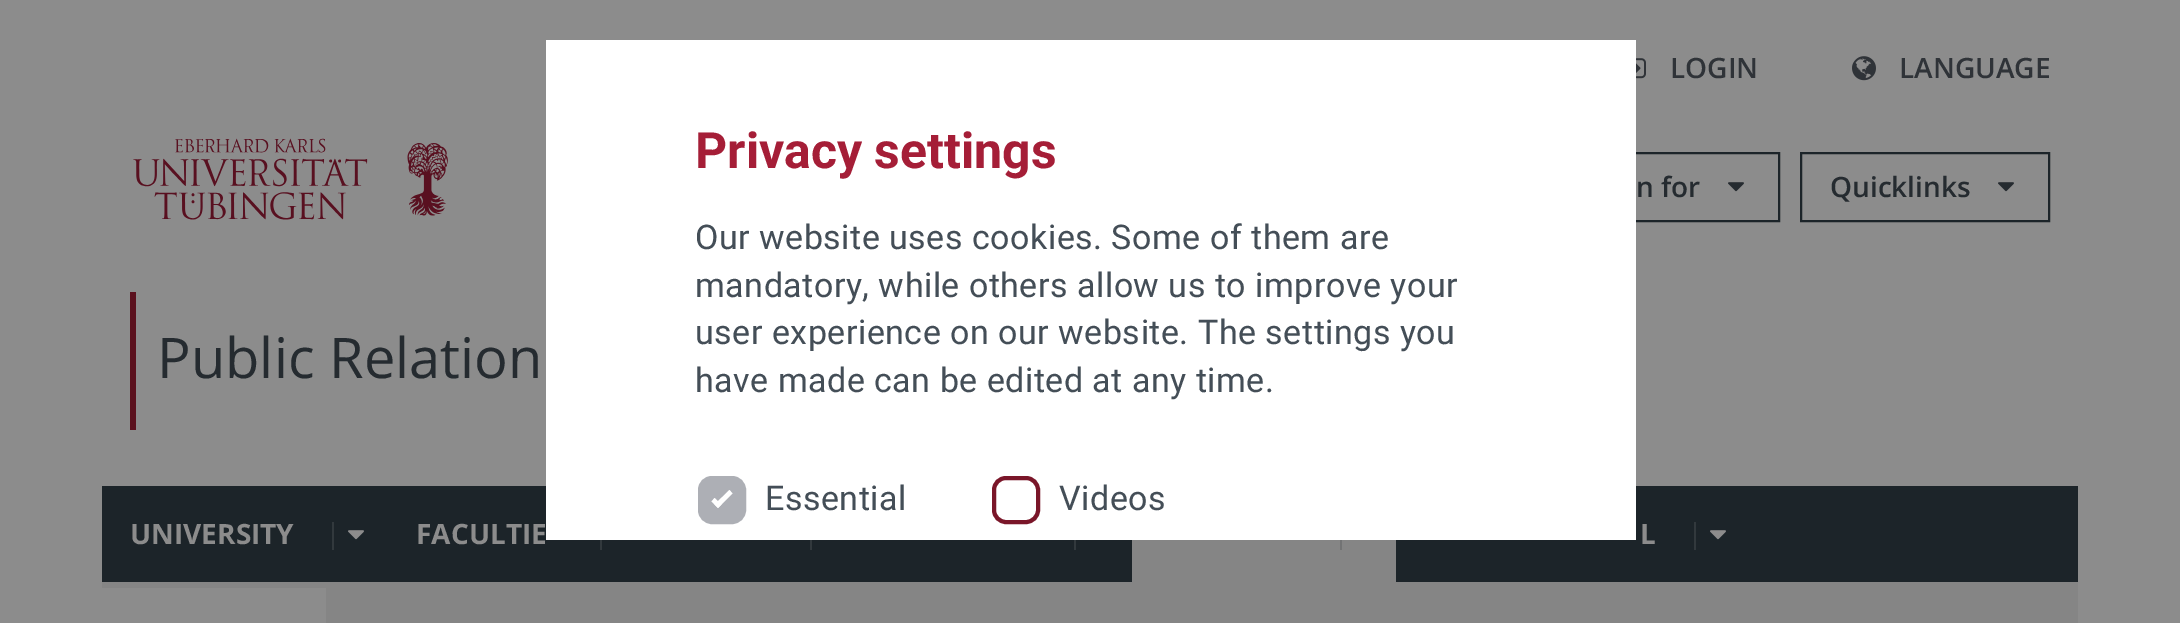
%!PS
<< /PageSize [2180 623] >> setpagedevice
/rgb { dup -16 bitshift 255 div exch dup -8 bitshift 255 and 255 div exch 255 and 255 div setrgbcolor } def
/font { [ exch dup neg 0 0 3 -1 roll 0 0 ] selectfont } def
/text { moveto show } def
/roundrect { 5 dict begin { /r /h /w /y /x } { exch def } forall
  x r add y moveto x w add y 2 copy h add r arct x w add y h add x 1 index r arct
  x y h add x y r arct x y 2 copy exch w add exch r arct closepath end } def
/picture { 5 dict begin { /h /w /y /x /name } { exch def } forall
  gsave x y translate w h scale
  w h 8 [w 0 0 h 0 0] name (r) file false 3 colorimage grestore end } def
0 623 translate 1 -1 scale
4 setmiterlimit
/s1 { /OpenSans-SemiBold 28 font 16#2F3338 rgb } def
/s2 { /OpenSans-SemiBold 28 font 16#252B30 rgb } def
/s3 { /OpenSans-Regular 56 font 16#252B30 rgb } def
/s4 { /OpenSans-Bold 28 font 16#8C8C8C rgb } def
/s5 { /Roboto-Bold 50 font 16#A51E37 rgb } def
16#8C8C8C rgb
0 0 2180 623 rectfill
(pic1.raw) 1636 58 10 21 picture
s1
(LOGIN) 1670 78 text
(pic2.raw) 1852 56 24 25 picture
(LANGUAGE) 1899 78 text
(pic3.raw) 133 138 315 82 picture
16#1C2429 rgb
2 setlinewidth
1461 153 318 68 rectstroke
s2
(n for) 1636 197 text
(pic4.raw) 1728 182 16 10 picture
16#1C2429 rgb
1801 153 248 68 rectstroke
s2
(Quicklinks) 1830 197 text
(pic4.raw) 1998 182 16 10 picture
16#5B111E rgb
130 292 6 138 rectfill
s3
(Public Relation) 157 378 text
16#1C2429 rgb
102 486 1976 96 rectfill
s4
(UNIVERSITY) 130 544 text
16#32393D rgb
332 522 2 28 rectfill
(pic5.raw) 348 530 16 10 picture
s4
(FACULTIE) 416 544 text
16#32393D rgb
600 540 2 10 rectfill
s4
(L) 1640 544 text
16#32393D rgb
1694 522 2 28 rectfill
(pic5.raw) 1710 530 16 10 picture
810 540 2 10 rectfill
1074 540 2 10 rectfill
16#858585 rgb
1132 540 264 42 rectfill
16#727374 rgb
1340 540 2 10 rectfill
16#858585 rgb
326 582 1752 41 rectfill
102 582 224 6 rectfill
16#FFFFFF rgb
546 40 1090 500 rectfill
s5
(Privacy settings) 695 168 text
/Roboto-Regular 34 font
16#444E57 rgb
695 249 moveto 0.5 0 (Our website uses cookies. Some of them are) ashow
695 297 moveto 0.5 0 (mandatory, while others allow us to improve your) ashow
695 344 moveto 0.5 0 (user experience on our website. The settings you) ashow
695 392 moveto 0.5 0 (have made can be edited at any time.) ashow
16#ADAFB5 rgb
700 478 44 44 12 roundrect gsave fill grestore
4 setlinewidth
stroke
16#444E57 rgb
765 510 moveto 0.5 0 (Essential) ashow
16#FFFFFF rgb
714.5 504.5 moveto 729.5 490 lineto 732.5 493.5 lineto 718 508 lineto closepath fill
711.5 501.5 moveto 714.5 498 lineto 721.5 504.5 lineto 718 508 lineto closepath fill
16#7A1629 rgb
994 478 44 44 12 roundrect stroke
16#444E57 rgb
1059 510 moveto 0.5 0 (Videos) ashow
showpage
